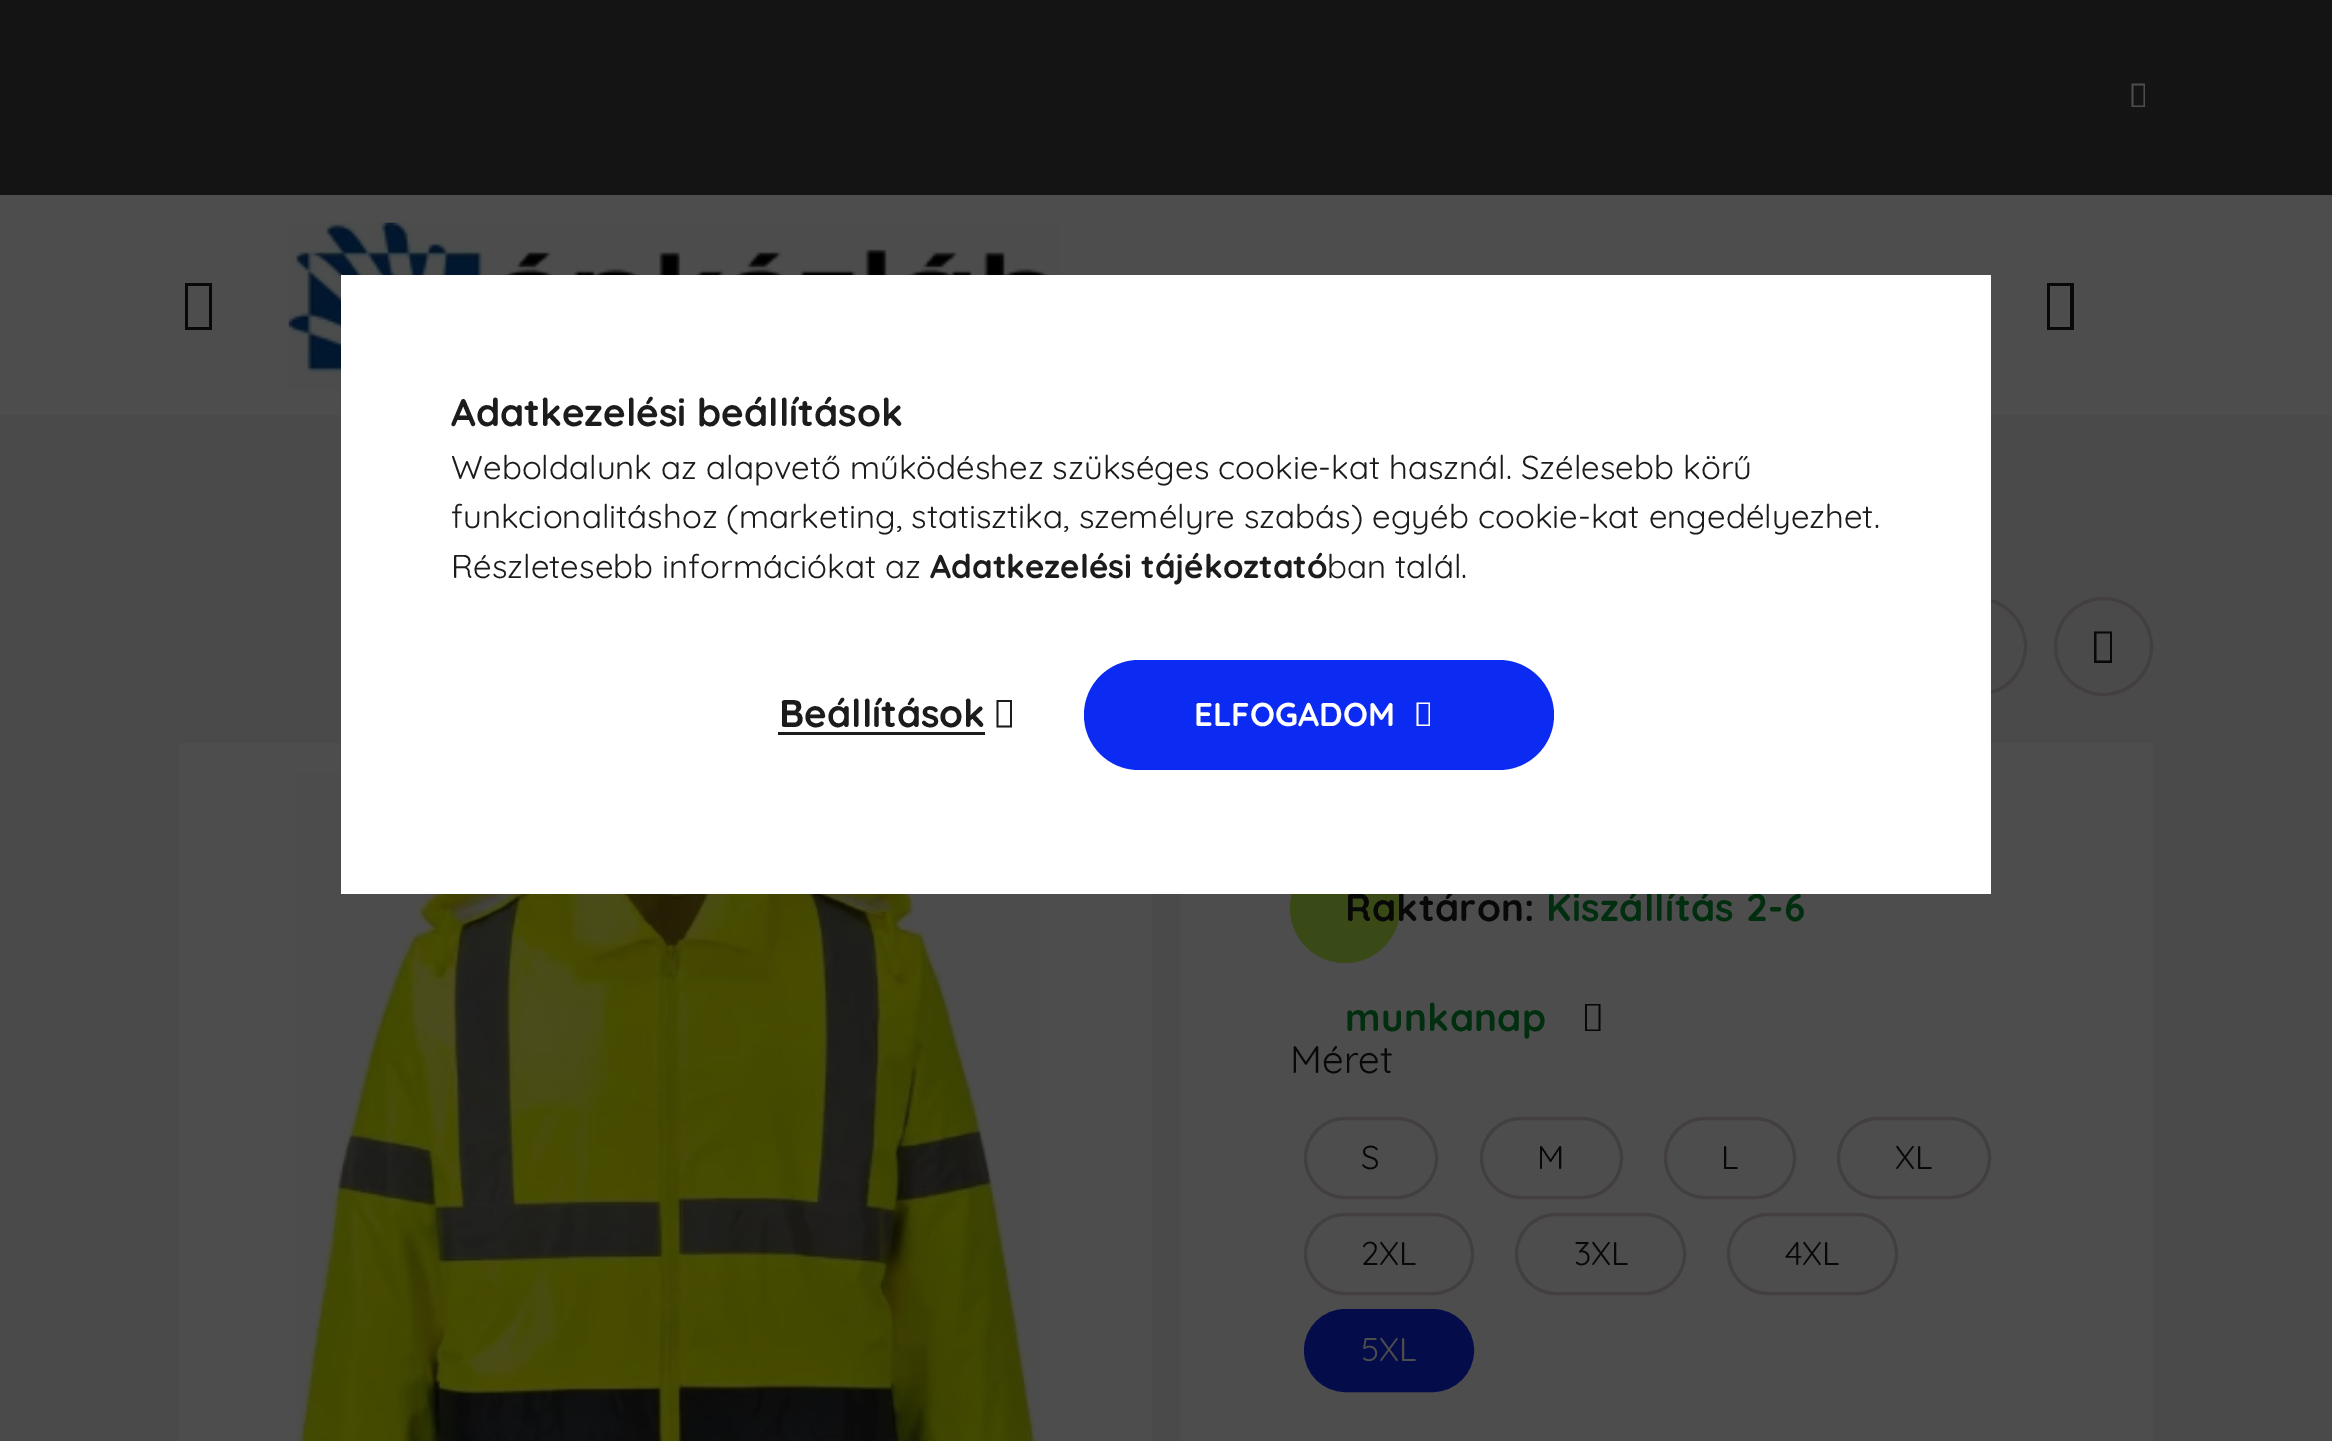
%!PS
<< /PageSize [2332 1441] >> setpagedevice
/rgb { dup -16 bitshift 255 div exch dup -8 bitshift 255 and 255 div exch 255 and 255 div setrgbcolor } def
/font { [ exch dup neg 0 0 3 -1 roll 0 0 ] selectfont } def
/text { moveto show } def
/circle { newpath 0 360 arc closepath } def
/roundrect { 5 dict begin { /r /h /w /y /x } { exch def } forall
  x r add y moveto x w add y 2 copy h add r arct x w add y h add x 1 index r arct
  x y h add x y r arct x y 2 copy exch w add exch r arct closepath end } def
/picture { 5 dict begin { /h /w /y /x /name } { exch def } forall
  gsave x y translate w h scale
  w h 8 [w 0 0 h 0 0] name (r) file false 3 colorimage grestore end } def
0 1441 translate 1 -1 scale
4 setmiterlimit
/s1 { /Quicksand-Bold 38.5 font 16#1C1C1C rgb } def
/s2 { /Quicksand-Regular 33 font 16#1C1C1C rgb } def
/s3 { /Quicksand-Bold 33 font 16#1C1C1C rgb } def
/s4 { /Quicksand-Bold 33 font 16#FFFFFF rgb } def
/s5 { /Quicksand-Regular 38.5 font 16#080808 rgb } def
/s6 { /Quicksand-Regular 33 font 16#080808 rgb } def
/s7 { /Quicksand-Regular 33 font 16#4D4D4D rgb } def
16#4A4A4A rgb
0 0 2332 1441 rectfill
16#4D4D4D rgb
0 195 2332 220 rectfill
(pic1.raw) 288 222 771 166 picture
16#423E42 rgb
3 setlinewidth
1977.5 646.5 48 circle stroke
16#4D4D4D rgb
179 743 973 698 rectfill
(pic2.raw) 296 773 744 668 picture
1180 743 973 698 rectfill
16#3A4A16 rgb
1345 908 55 circle fill
/Quicksand-Bold 38.5 font
16#080808 rgb
1345 921 moveto 0.4 0 (Raktáron:) ashow
16#002E0F rgb
1546 921 moveto 0.4 0 (Kiszállítás 2-6) ashow
16#FFFFFF rgb
341 275 1650 619 rectfill
s1
(Adatkezelési beállítások) 451 426 text
s2
(Weboldalunk az alapvető működéshez szükséges cookie-kat használ. Szélesebb körű) 451 479 text
(funkcionalitáshoz \(marketing, statisztika, személyre szabás\) egyéb cookie-kat engedélyezhet.) 451 528 text
(Részletesebb információkat az) 451 578 text
s3
(Adatkezelési tájékoztató) 930 578 text
s2
(ban talál.) 1327 578 text
s1
(Beállítások) 779 727 text
778 732 207 3 rectfill
996.5 727.5 moveto 996.5 700 lineto 1012 700 lineto 1012 727.5 lineto closepath 998.5 725.5 moveto 1010 725.5 lineto 1010 702 lineto 998.5 702 lineto closepath fill
16#0C2BF2 rgb
1084 660 470 110 55 roundrect fill
s4
(ELFOGADOM) 1194 726 text
1416.5 726 moveto 1416.5 702.5 lineto 1430 702.5 lineto 1430 726 lineto closepath 1418.5 724.5 moveto 1428.5 724.5 lineto 1428.5 704 lineto 1418.5 704 lineto closepath fill
16#141414 rgb
0 0 2332 195 rectfill
16#4D4D4D rgb
2131.5 107 moveto 2131.5 83.5 lineto 2145 83.5 lineto 2145 107 lineto closepath 2133.5 105.5 moveto 2143.5 105.5 lineto 2143.5 85.5 lineto 2133.5 85.5 lineto closepath fill
16#080808 rgb
185 330 moveto 185 283 lineto 212 283 lineto 212 330 lineto closepath 188 327 moveto 209 327 lineto 209 286 lineto 188 286 lineto closepath fill
2047 330 moveto 2047 283 lineto 2074 283 lineto 2074 330 lineto closepath 2050 327 moveto 2070 327 lineto 2070 286 lineto 2050 286 lineto closepath fill
16#423E42 rgb
2103.5 646.5 48 circle stroke
16#080808 rgb
2094 663 moveto 2094 631.5 lineto 2112 631.5 lineto 2112 663 lineto closepath 2096.5 660.5 moveto 2110 660.5 lineto 2110 633.5 lineto 2096.5 633.5 lineto closepath fill
/Quicksand-Bold 38.5 font
16#002E0F rgb
1345 1031 moveto 0.4 0 (munkanap) ashow
16#080808 rgb
1585 1031 moveto 1585 1004 lineto 1600.5 1004 lineto 1600.5 1031 lineto closepath 1587 1029.5 moveto 1598.5 1029.5 lineto 1598.5 1005.5 lineto 1587 1005.5 lineto closepath fill
s5
(Méret) 1290 1073 text
16#423E42 rgb
1305.5 1118.5 131 79 39.5 roundrect stroke
s6
(S) 1361 1169 text
16#423E42 rgb
1481.5 1118.5 140 79 39.5 roundrect stroke
s6
(M) 1537 1169 text
16#423E42 rgb
1665.5 1118.5 129 79 39.5 roundrect stroke
s6
(L) 1721 1169 text
16#423E42 rgb
1838.5 1118.5 151 79 39.5 roundrect stroke
s6
(XL) 1895 1169 text
16#423E42 rgb
1305.5 1214.5 167 79 39.5 roundrect stroke
s6
(2XL) 1361 1265 text
16#423E42 rgb
1516.5 1214.5 168 79 39.5 roundrect stroke
s6
(3XL) 1574 1265 text
16#423E42 rgb
1728.5 1214.5 168 79 39.5 roundrect stroke
s6
(4XL) 1785 1265 text
16#040D49 rgb
1305.5 1310.5 167 80 40 roundrect gsave fill grestore
stroke
s7
(5XL) 1361 1361 text
showpage
